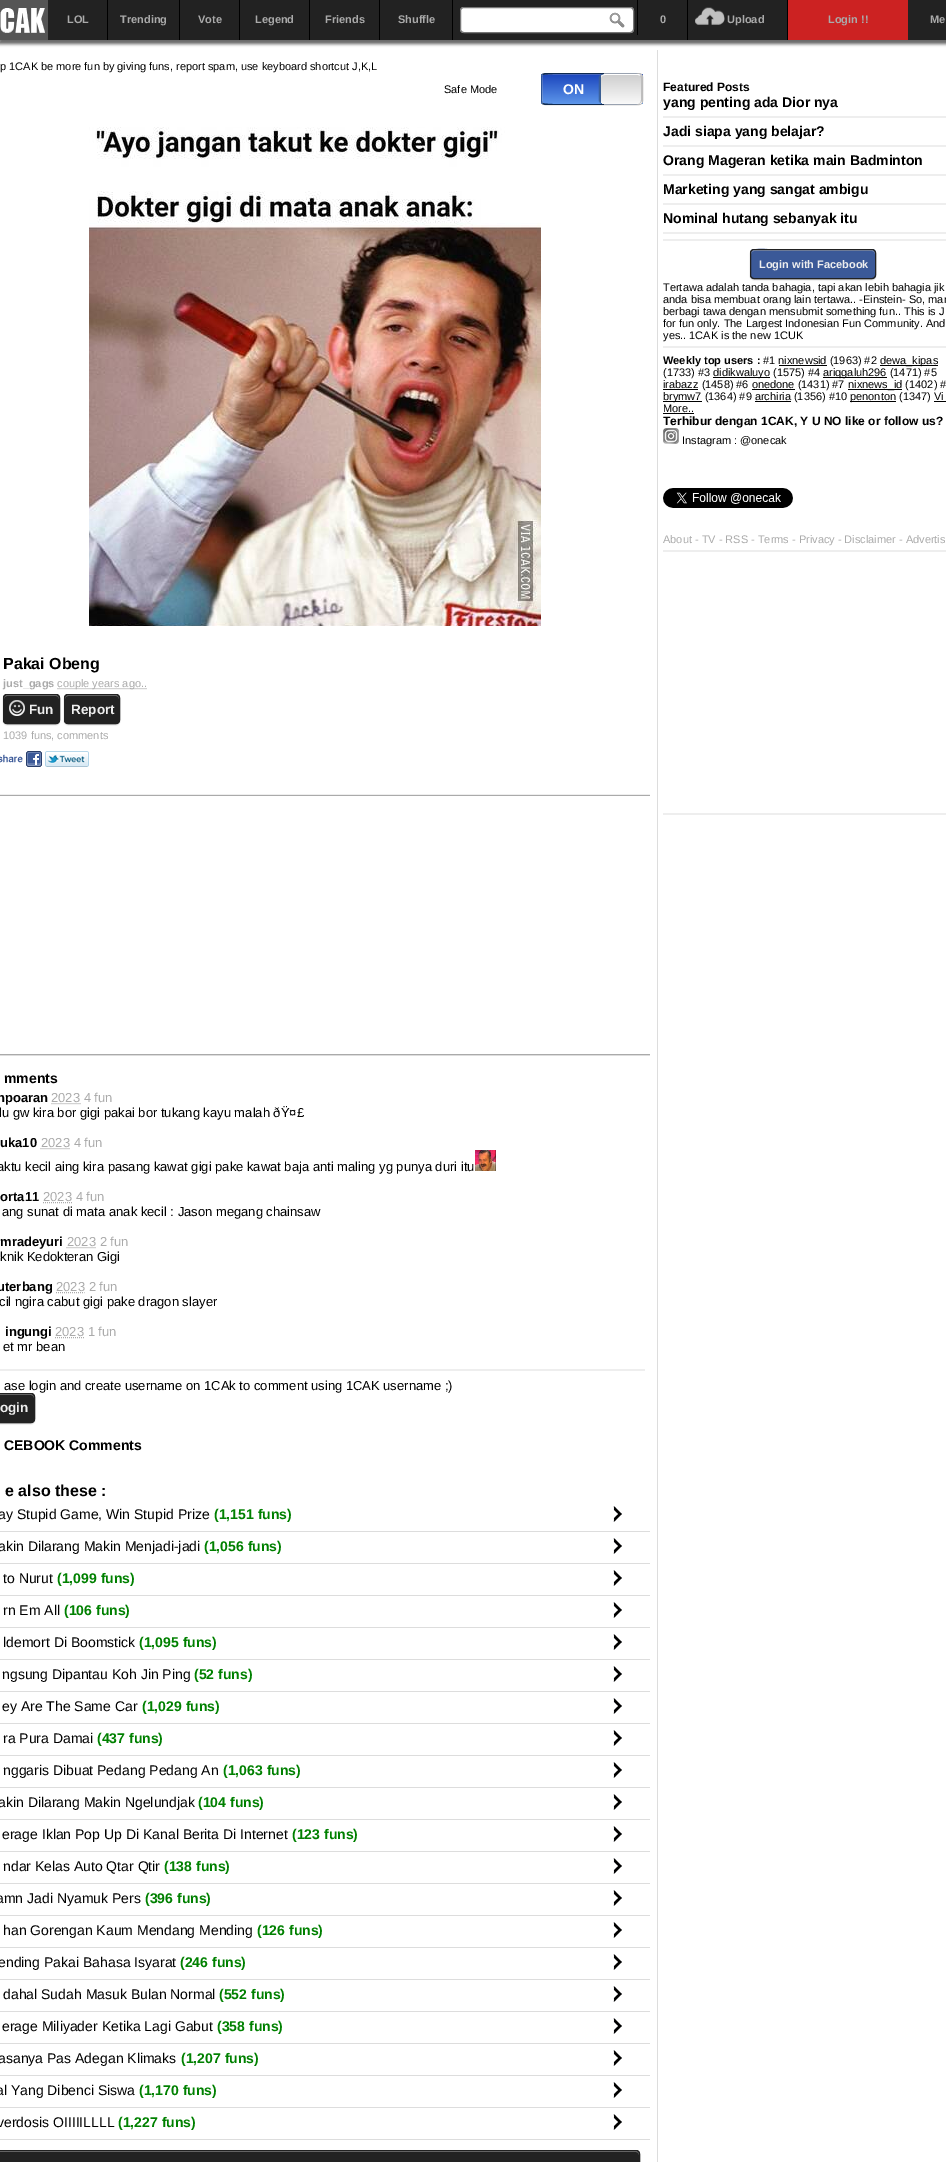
%!PS
<< /PageSize [946 2162] /PageUsesTransparency true >> setpagedevice
/rgb { dup -16 bitshift 255 div exch dup -8 bitshift 255 and 255 div exch 255 and 255 div setrgbcolor } def
/font { [ exch dup neg 0 0 3 -1 roll 0 0 ] selectfont } def
/text { moveto show } def
/alpha { dup .setfillconstantalpha .setstrokeconstantalpha } def
/roundrect { 5 dict begin { /r /h /w /y /x } { exch def } forall
  x r add y moveto x w add y 2 copy h add r arct x w add y h add x 1 index r arct
  x y h add x y r arct x y 2 copy exch w add exch r arct closepath end } def
/shadow { 12 dict begin { /a /b /q /h /w /y /x } { exch def } forall gsave /was 0 def
  9 -2 -9 { dup b mul 4 div /e exch def 1 sub .425 mul 2.718 exch exp 1 add a .99 .min exch div /now exch def
    1 1 now sub 1 was sub div sub alpha /was now def
    w h .min e 2 mul add 0 gt { x e sub y e sub w e 2 mul add h e 2 mul add
      q e add b .6 mul add w h .min 2 div e add .min 0 .max roundrect fill } if } for grestore end } def
/picture { 5 dict begin { /h /w /y /x /name } { exch def } forall
  gsave x y translate w h scale
  w h 8 [w 0 0 h 0 0] name (r) file false 3 colorimage grestore end } def
0 .pushpdf14devicefilter
0 2162 translate 1 -1 scale
4 setmiterlimit
/s1 { /LiberationSans-Bold 11 font 16#AAAAAA rgb } def
/s2 { /LiberationSans-Regular 11 font 16#000000 rgb } def
/s3 { /LiberationSans-Bold 14 font 16#FFFFFF rgb } def
/s4 { /LiberationSans-Bold 16 font 16#000000 rgb } def
/s5 { /LiberationSans-Regular 11 font 16#AAAAAA rgb } def
/s6 { /LiberationSans-Bold 13.5 font 16#EEEEEE rgb } def
/s7 { /LiberationSans-Bold 14 font 16#000000 rgb } def
/s8 { /LiberationSans-Bold 13 font 16#000000 rgb } def
/s9 { /LiberationSans-Regular 13 font 16#AAAAAA rgb } def
/s10 { /LiberationSans-Regular 13 font 16#000000 rgb } def
/s11 { /LiberationSans-Regular 14 font 16#000000 rgb } def
/s12 { /LiberationSans-Bold 14 font 16#008000 rgb } def
/s13 { /LiberationSans-Bold 12 font 16#000000 rgb } def
/s14 { /LiberationSans-Bold 11 font 16#EEEEEE rgb } def
/s15 { /LiberationSans-Bold 11 font 16#000000 rgb } def
16#FFFFFF rgb
0 0 946 2162 rectfill
16#666666 rgb
-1 0 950 44 0 1.5 1 shadow
16#222222 rgb
48 0 898 40 rectfill
16#555555 rgb
0 0 48 40 rectfill
(pic1.raw) 0 8 45 25 picture
16#000000 rgb
107 0 1 40 rectfill
s1
(LOL) 67 23 text
16#000000 rgb
179 0 1 40 rectfill
s1
(Trending) 120 23 text
16#000000 rgb
239 0 1 40 rectfill
s1
(Vote) 198 23 text
16#000000 rgb
309 0 1 40 rectfill
s1
(Legend) 255 23 text
16#000000 rgb
379 0 1 40 rectfill
s1
(Friends) 325 23 text
16#000000 rgb
452 0 1 40 rectfill
s1
(Shuffle) 398 23 text
16#000000 rgb
637 0 1 35 rectfill
16#FFFFFF rgb
460 7 174 26 4 roundrect fill
(pic2.raw) 609 12 16 16 picture
16#777777 rgb
460.5 7.5 173 25 3.5 roundrect stroke
16#000000 rgb
687 0 1 40 rectfill
s1
(0) 660 23 text
16#000000 rgb
787 0 1 40 rectfill
(pic3.raw) 695 7 30 18 picture
s1
(Upload) 727 23 text
16#CC2222 rgb
788 0 120 40 rectfill
s1
(Login !!) 828 23 text
(Me) 930 23 text
16#DDDDDD rgb
657 50 1 2112 rectfill
s2
(p 1CAK be more fun by giving funs, report spam, use keyboard shortcut J,K,L) 0 70 text
(Safe Mode) 444 93 text
gsave
541 73 102 32 4 roundrect clip newpath
gsave 541 74 moveto 643 74 lineto 643 104 lineto 541 104 lineto closepath clip newpath
<< /ShadingType 2 /ColorSpace /DeviceRGB /Coords [592 74 592 104] /Extend [true true] /Function << /FunctionType 2 /Domain [0 1] /C0 [0.106 0.271 0.741] /C1 [0.365 0.588 0.918] /N 1 >> >> shfill grestore
grestore
16#BCBBBB rgb
541.5 73.5 101 31 3.5 roundrect stroke
16#3A5E91 rgb
599 74 41 30 4 0.5 1 shadow
gsave
601 74 41 30 4 roundrect clip newpath
gsave 601 75 moveto 642 75 lineto 642 100 lineto 642 102 640 104 638 104 curveto 605 104 lineto 603 104 601 102 601 100 curveto closepath clip newpath
<< /ShadingType 2 /ColorSpace /DeviceRGB /Coords [621 75 621 104] /Extend [true true] /Function << /FunctionType 2 /Domain [0 1] /C0 [0.812 0.812 0.812] /C1 [0.976 0.976 0.976] /N 1 >> >> shfill grestore
grestore
16#FFFFFF rgb
605 74 moveto 603 74 601 76 601 78 curveto 601 76 603 75 605 75 curveto 638 75 lineto 639 75 640 75 640 76 curveto 641 75 lineto 640 74.5 639 74 638 74 curveto closepath fill
16#0F2A4F rgb
545 73 moveto 542 74 lineto 543 75 lineto 545 73 597 74 604 74 curveto 604 73 lineto closepath 604 105 moveto 604 104 lineto 597 104 545 105 543 103 curveto 542 104 lineto 545 105 lineto closepath fill
16#2C5496 rgb
541 77 moveto 541 101 lineto 541 102 541.5 103 542 104 curveto 543 103 lineto 542 103 542 102 542 101 curveto 542 77 lineto 542 76 542 75 543 75 curveto 542 74 lineto 541.5 75 541 76 541 77 curveto closepath fill
s3
(ON) 563 94 text
16#BEBEBE rgb
642 100 moveto 642 78 lineto 642 77 641.5 76 641 75 curveto 640 76 lineto 641 76 641 77 641 78 curveto 641 100 lineto 641 102 640 104 638 104 curveto 640 104 642 102 642 100 curveto closepath fill
16#EEEEEE rgb
0 794 650 1 rectfill
(pic4.raw) 89 127 452 499 picture
s4
(Pakai Obeng) 3 669 text
s1
(just_gags) 3 687 text
[1 1] 0 setdash
57.5 688.5 moveto 147.5 688.5 lineto stroke
s5
(couple years ago..) 57 687 text
16#000000 rgb
3 695 57 30 4 0.5 0.2 shadow
16#222222 rgb
3 694 57 30 4 roundrect fill
(pic5.raw) 9 700 16 16 picture
16#7A7A7A rgb
7 696 moveto 56 696 lineto 58 696 59 697 59 699 curveto 59 693 52 695 48 695 curveto 15 695 lineto 11 695 4 693 4 699 curveto 4 697 5 696 7 696 curveto closepath fill
16#222222 rgb
[] 0 setdash
3.5 694.5 56 29 3.5 roundrect stroke
s6
(Fun) 29 714 text
16#000000 rgb
64 695 56 30 4 0.5 0.2 shadow
16#222222 rgb
64 694 56 30 4 roundrect fill
16#7A7A7A rgb
68 696 moveto 116 696 lineto 118 696 119 697 119 699 curveto 119 693 112 695 108 695 curveto 76 695 lineto 72 695 65 693 65 699 curveto 65 697 66 696 68 696 curveto closepath fill
16#222222 rgb
64.5 694.5 55 29 3.5 roundrect stroke
s6
(Report) 71 714 text
s5
(1039 funs, comments) 3 739 text
(pic6.raw) 0 751 42 16 picture
(pic7.raw) 45 751 44 16 picture
0 795 650 1 rectfill
0 1054 650 1 rectfill
16#DDDDDD rgb
0 1055 650 1 rectfill
s7
(mments) 4 1083 text
s8
(npoaran) -3 1102 text
16#AAAAAA rgb
[1 1] 0 setdash
51.5 1103.5 moveto 80.5 1103.5 lineto stroke
s9
(2023 4 fun) 51 1102 text
s10
(lu gw kira bor gigi pakai bor tukang kayu malah ðŸ¤£) -1 1117 text
s8
(uka10) 0 1147 text
s9
(2023 4 fun) 41 1147 text
40.5 1148.5 moveto 69.5 1148.5 lineto stroke
s10
(aktu kecil aing kira pasang kawat gigi pake kawat baja anti maling yg punya duri itu) -3 1171 text
(pic8.raw) 475 1150 21 21 picture
s8
(orta11) 0 1201 text
s9
(2023 4 fun) 43 1201 text
43 1202.5 moveto 72 1202.5 lineto stroke
s10
(ang sunat di mata anak kecil : Jason megang chainsaw) 2 1216 text
s8
(mradeyuri) 0 1246 text
s9
(2023 2 fun) 67 1246 text
66.5 1247.5 moveto 95.5 1247.5 lineto stroke
s10
(knik Kedokteran Gigi) 0 1261 text
s8
(uterbang) -3 1291 text
s9
(2023 2 fun) 56 1291 text
56 1292.5 moveto 84.5 1292.5 lineto stroke
s10
(cil ngira cabut gigi pake dragon slayer) -1 1306 text
s8
(ingungi) 5 1336 text
s9
(2023 1 fun) 55 1336 text
55 1337.5 moveto 84 1337.5 lineto stroke
s10
(et mr bean) 3 1351 text
16#EEEEEE rgb
0 1369 645 2 rectfill
s10
(ase login and create username on 1CAk to comment using 1CAK username ;\)) 4 1390 text
-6 1394 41 30 4 0.5 0.2 shadow
16#222222 rgb
-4 1393 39 30 4 roundrect fill
16#7A7A7A rgb
-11 1395 moveto 31 1395 lineto 33 1395 34 1396 34 1398 curveto 34 1392 28 1394 24 1394 curveto -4 1394 lineto -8 1394 -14 1392 -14 1398 curveto -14 1396 -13 1395 -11 1395 curveto closepath fill
16#222222 rgb
[] 0 setdash
-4.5 1393.5 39 29 3.5 roundrect stroke
s6
(ogin) 0 1412 text
s7
(CEBOOK Comments) 4 1450 text
s4
(e also these :) 5 1496 text
16#DDDDDD rgb
0 1531 650 1 rectfill
s11
(ay Stupid Game, Win Stupid Prize) -2 1519 text
s12
(\(1,151 funs\)) 214 1519 text
(pic9.raw) 613 1506 9 16 picture
16#DDDDDD rgb
0 1563 650 1 rectfill
s11
(akin Dilarang Makin Menjadi-jadi) -2 1551 text
s12
(\(1,056 funs\)) 204 1551 text
(pic9.raw) 613 1538 9 16 picture
16#DDDDDD rgb
0 1595 650 1 rectfill
s11
(to Nurut) 3 1583 text
s12
(\(1,099 funs\)) 57 1583 text
(pic9.raw) 613 1570 9 16 picture
16#DDDDDD rgb
0 1627 650 1 rectfill
s11
(rn Em All) 3 1615 text
s12
(\(106 funs\)) 64 1615 text
(pic9.raw) 613 1602 9 16 picture
16#DDDDDD rgb
0 1659 650 1 rectfill
s11
(ldemort Di Boomstick) 3 1647 text
s12
(\(1,095 funs\)) 139 1647 text
(pic9.raw) 613 1634 9 16 picture
16#DDDDDD rgb
0 1691 650 1 rectfill
s11
(ngsung Dipantau Koh Jin Ping) 2 1679 text
s12
(\(52 funs\)) 194 1679 text
(pic9.raw) 613 1666 9 16 picture
16#DDDDDD rgb
0 1723 650 1 rectfill
s11
(ey Are The Same Car) 2 1711 text
s12
(\(1,029 funs\)) 142 1711 text
(pic9.raw) 613 1698 9 16 picture
16#DDDDDD rgb
0 1755 650 1 rectfill
s11
(ra Pura Damai) 3 1743 text
s12
(\(437 funs\)) 97 1743 text
(pic9.raw) 613 1730 9 16 picture
16#DDDDDD rgb
0 1787 650 1 rectfill
s11
(nggaris Dibuat Pedang Pedang An) 3 1775 text
s12
(\(1,063 funs\)) 223 1775 text
(pic9.raw) 613 1762 9 16 picture
16#DDDDDD rgb
0 1819 650 1 rectfill
s11
(akin Dilarang Makin Ngelundjak) -2 1807 text
s12
(\(104 funs\)) 198 1807 text
(pic9.raw) 613 1794 9 16 picture
16#DDDDDD rgb
0 1851 650 1 rectfill
s11
(erage Iklan Pop Up Di Kanal Berita Di Internet) 2 1839 text
s12
(\(123 funs\)) 292 1839 text
(pic9.raw) 613 1826 9 16 picture
16#DDDDDD rgb
0 1883 650 1 rectfill
s11
(ndar Kelas Auto Qtar Qtir) 3 1871 text
s12
(\(138 funs\)) 164 1871 text
(pic9.raw) 613 1858 9 16 picture
16#DDDDDD rgb
0 1915 650 1 rectfill
s11
(amn Jadi Nyamuk Pers) -4 1903 text
s12
(\(396 funs\)) 145 1903 text
(pic9.raw) 613 1890 9 16 picture
16#DDDDDD rgb
0 1947 650 1 rectfill
s11
(han Gorengan Kaum Mendang Mending) 3 1935 text
s12
(\(126 funs\)) 257 1935 text
(pic9.raw) 613 1922 9 16 picture
16#DDDDDD rgb
0 1979 650 1 rectfill
s11
(ending Pakai Bahasa Isyarat) -2 1967 text
s12
(\(246 funs\)) 180 1967 text
(pic9.raw) 613 1954 9 16 picture
16#DDDDDD rgb
0 2011 650 1 rectfill
s11
(dahal Sudah Masuk Bulan Normal) 3 1999 text
s12
(\(552 funs\)) 219 1999 text
(pic9.raw) 613 1986 9 16 picture
16#DDDDDD rgb
0 2043 650 1 rectfill
s11
(erage Miliyader Ketika Lagi Gabut) 2 2031 text
s12
(\(358 funs\)) 217 2031 text
(pic9.raw) 613 2018 9 16 picture
16#DDDDDD rgb
0 2075 650 1 rectfill
s11
(asanya Pas Adegan Klimaks) -2 2063 text
s12
(\(1,207 funs\)) 181 2063 text
(pic9.raw) 613 2050 9 16 picture
16#DDDDDD rgb
0 2107 650 1 rectfill
s11
(al Yang Dibenci Siswa) -4 2095 text
s12
(\(1,170 funs\)) 139 2095 text
(pic9.raw) 613 2082 9 16 picture
16#DDDDDD rgb
0 2139 650 1 rectfill
s11
(verdosis OIIIIILLLL) -3 2127 text
s12
(\(1,227 funs\)) 118 2127 text
(pic9.raw) 613 2114 9 16 picture
16#000000 rgb
-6 2151 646 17 4 0.5 0.2 shadow
16#222222 rgb
-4 2150 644 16 4 roundrect fill
16#7A7A7A rgb
-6 2152 moveto 636 2152 lineto 638 2152 639 2153 639 2155 curveto 639 2154 lineto 639 2152 638 2151 636 2151 curveto -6 2151 lineto -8 2151 -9 2152 -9 2154 curveto -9 2155 lineto -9 2153 -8 2152 -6 2152 curveto closepath fill
16#222222 rgb
-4.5 2150.5 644 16 3.5 roundrect stroke
s13
(Featured Posts) 663 91 text
s7
(yang penting ada Dior nya) 663 107 text
16#EEEEEE rgb
663 116 283 2 rectfill
s7
(Jadi siapa yang belajar?) 663 136 text
16#EEEEEE rgb
663 145 283 2 rectfill
s7
(Orang Mageran ketika main Badminton) 663 165 text
16#EEEEEE rgb
663 174 283 2 rectfill
s7
(Marketing yang sangat ambigu) 663 194 text
16#EEEEEE rgb
663 203 283 2 rectfill
s7
(Nominal hutang sebanyak itu) 663 223 text
16#EEEEEE rgb
663 232 283 2 rectfill
663 239 283 2 rectfill
16#000000 rgb
750 250 126 30 4 0.5 0.2 shadow
16#3B5998 rgb
750 249 126 30 4 roundrect fill
16#899BC1 rgb
754 251 moveto 872 251 lineto 874 251 875 252 875 254 curveto 875 252 874 250 872 250 curveto 774 250 lineto 773 250 751 245 751 254 curveto 751 252 752 251 754 251 curveto closepath fill
16#222222 rgb
750.5 249.5 125 29 3.5 roundrect stroke
s14
(Login with Facebook) 759 268 text
s2
(Tertawa adalah tanda bahagia, tapi akan lebih bahagia jik) 663 291 text
(anda bisa membuat orang lain tertawa.. -Einstein- So, mar) 663 303 text
(berbagi tawa dengan mensubmit something fun.. This is J) 663 315 text
(for fun only. The Largest Indonesian Fun Community. And) 663 327 text
(yes.. 1CAK is the new 1CUK) 663 339 text
16#EEEEEE rgb
663 346 283 2 rectfill
s15
(Weekly top users :) 663 364 text
s2
(#1 nixnewsid \(1963\) #2) 763 364 text
880 365 58 1 rectfill
(dewa_kipas) 880 364 text
779 365 48 1 rectfill
(\(1733\) #3) 663 376 text
713 377 57 1 rectfill
(didikwaluyo \(1575\) #4) 713 376 text
823 377 64 1 rectfill
(ariqgaluh296 \(1471\) #5) 823 376 text
663 389 35 1 rectfill
(irabazz \(1458\) #6 onedone \(1431\) #7) 663 388 text
848 389 54 1 rectfill
(nixnews_id \(1402\) #) 848 388 text
752 389 43 1 rectfill
663 401 39 1 rectfill
(brymw7 \(1364\) #9 archiria \(1356\) #10) 663 400 text
850 401 46 1 rectfill
(penonton \(1347\) Vi) 850 400 text
755 401 36 1 rectfill
(More..) 663 412 text
934 401 12 1 rectfill
663 413 31 1 rectfill
s13
(Terhibur dengan 1CAK, Y U NO like or follow us?) 663 425 text
(pic10.raw) 663 428 16 16 picture
s2
(Instagram : @onecak) 682 444 text
(pic11.raw) 663 488 130 20 picture
s5
(About - TV - RSS - Terms - Privacy - Disclaimer - Advertis) 663 543 text
16#EEEEEE rgb
663 550 283 2 rectfill
663 813 283 2 rectfill
.poppdf14devicefilter showpage
